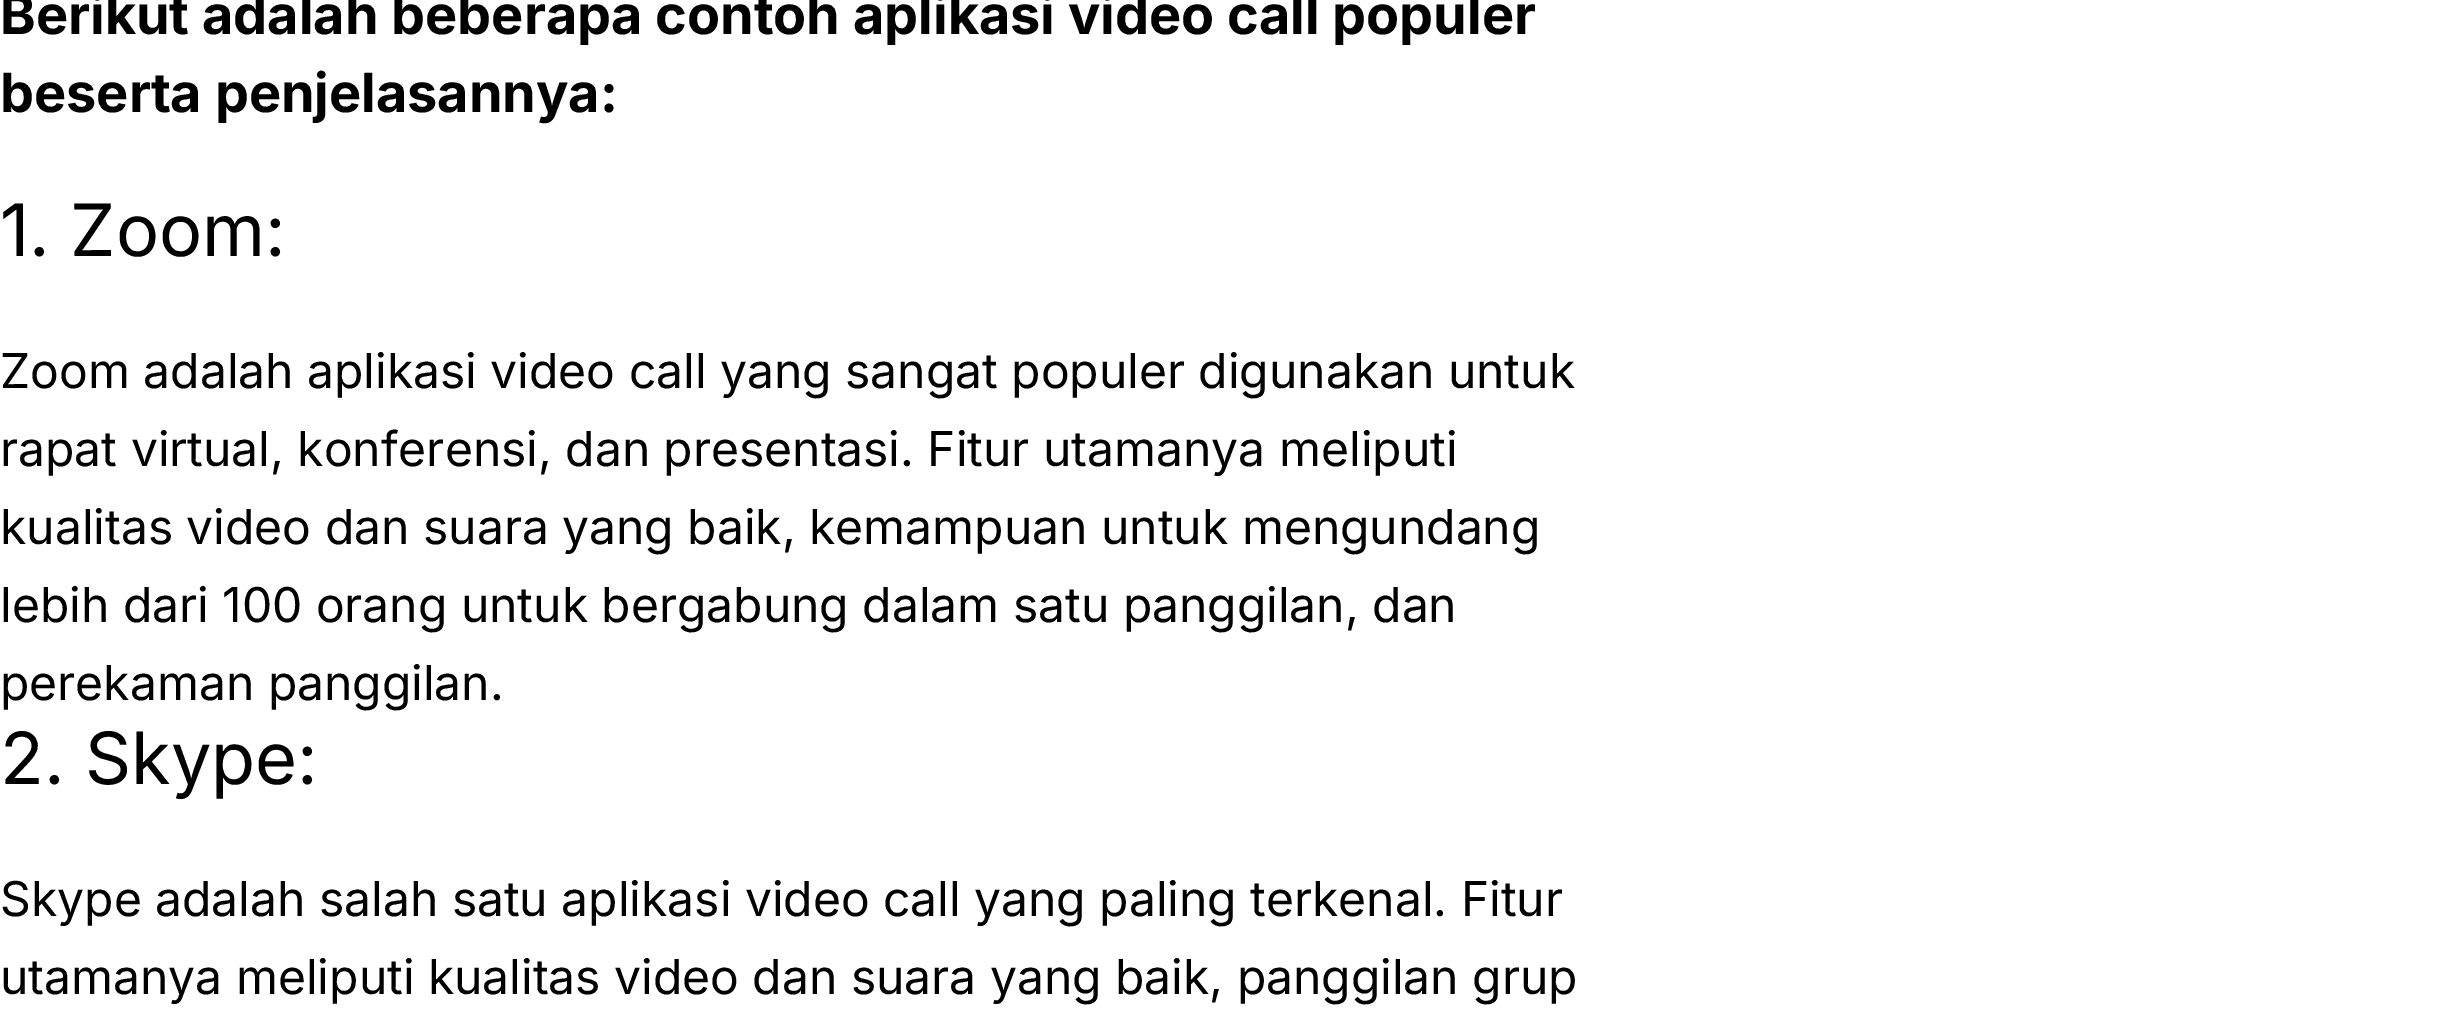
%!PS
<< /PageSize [2462 1029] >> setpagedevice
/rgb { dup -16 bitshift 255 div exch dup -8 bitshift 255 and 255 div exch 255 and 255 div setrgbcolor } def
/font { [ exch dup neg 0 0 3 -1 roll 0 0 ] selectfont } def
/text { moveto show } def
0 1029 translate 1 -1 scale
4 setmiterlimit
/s1 { /Inter-Bold 54 font 16#000000 rgb } def
/s2 { /Inter-Regular 72 font 16#000000 rgb } def
/s3 { /Inter-Regular 48 font 16#000000 rgb } def
16#FFFFFF rgb
0 0 2462 1029 rectfill
s1
(Berikut adalah beberapa contoh aplikasi video call populer) 0 34 text
(beserta penjelasannya:) 0 112 text
s2
(1. Zoom:) 0 256 text
s3
(Zoom adalah aplikasi video call yang sangat populer digunakan untuk) 0 388 text
(rapat virtual, konferensi, dan presentasi. Fitur utamanya meliputi) 0 466 text
(kualitas video dan suara yang baik, kemampuan untuk mengundang) 0 544 text
(lebih dari 100 orang untuk bergabung dalam satu panggilan, dan) 0 622 text
(perekaman panggilan.) 0 700 text
s2
(2. Skype:) 0 784 text
s3
(Skype adalah salah satu aplikasi video call yang paling terkenal. Fitur) 0 916 text
(utamanya meliputi kualitas video dan suara yang baik, panggilan grup) 0 994 text
showpage
